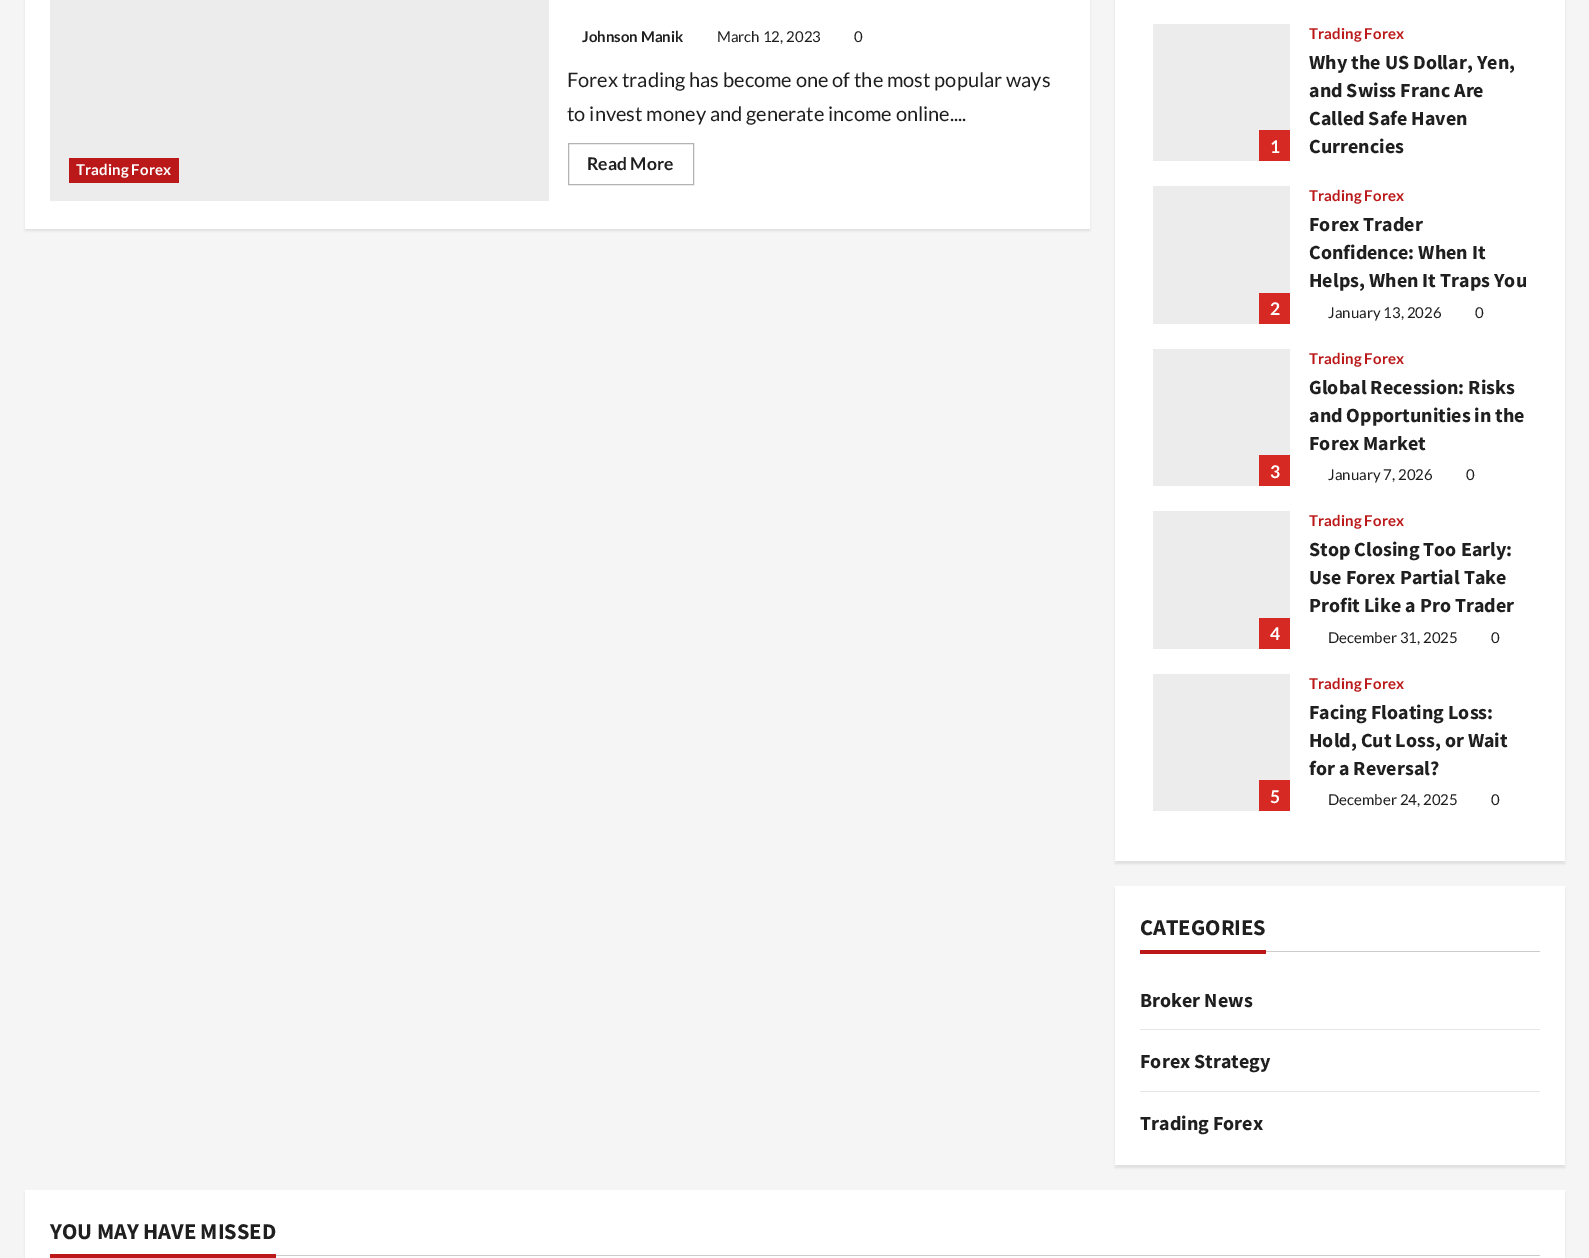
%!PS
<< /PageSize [1589 1258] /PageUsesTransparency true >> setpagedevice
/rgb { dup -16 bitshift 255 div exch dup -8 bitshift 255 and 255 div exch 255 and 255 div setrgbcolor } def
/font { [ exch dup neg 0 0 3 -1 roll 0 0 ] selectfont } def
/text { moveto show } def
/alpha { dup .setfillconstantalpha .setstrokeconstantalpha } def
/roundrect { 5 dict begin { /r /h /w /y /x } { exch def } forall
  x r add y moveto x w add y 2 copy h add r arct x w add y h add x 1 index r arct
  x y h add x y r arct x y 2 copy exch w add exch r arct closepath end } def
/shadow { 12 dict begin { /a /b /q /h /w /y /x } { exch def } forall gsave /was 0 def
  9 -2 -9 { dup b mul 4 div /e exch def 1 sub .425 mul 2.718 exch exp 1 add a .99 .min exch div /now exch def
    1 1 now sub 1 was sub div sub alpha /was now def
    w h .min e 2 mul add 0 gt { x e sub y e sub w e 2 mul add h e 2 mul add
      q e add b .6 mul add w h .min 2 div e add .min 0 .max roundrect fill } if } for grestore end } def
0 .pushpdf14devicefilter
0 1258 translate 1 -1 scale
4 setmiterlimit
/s1 { /Lato-Bold 15 font 16#1F1F1F rgb } def
/s2 { /Lato-Regular 15 font 16#1F1F1F rgb } def
/s3 { /Lato-Regular 20 font 16#1F1F1F rgb } def
/s4 { /Lato-Bold 17.5 font 16#1F1F1F rgb } def
/s5 { /Lato-Bold 17.5 font 16#FFFFFF rgb } def
/s6 { /SourceSansPro-Bold 20 font 16#1F1F1F rgb } def
/s7 { /SourceSansPro-Bold 22.5 font 16#1F1F1F rgb } def
16#F5F5F5 rgb
0 0 1589 1258 rectfill
16#000000 rgb
25 -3 1065 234 0 1 0.08 shadow
16#FFFFFF rgb
25 0 1065 229 rectfill
16#ECECEC rgb
50 0 499 201 rectfill
16#BB1919 rgb
69 158 110 25 rectfill
/Lato-Bold 15 font
16#FFFFFF rgb
76 175 moveto 0.1 0 (Trading Forex) ashow
s1
(Johnson Manik) 582 42 text
s2
(March 12, 2023) 717 42 text
(0) 854 42 text
s3
(Forex trading has become one of the most popular ways) 567 87 text
(to invest money and generate income online....) 567 121 text
16#B3B3B3 rgb
568.5 143.5 125 41 rectstroke
s4
(Read More) 587 170 text
16#000000 rgb
1115 -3 450 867 0 1 0.08 shadow
16#FFFFFF rgb
1115 0 450 861 rectfill
16#ECECEC rgb
1153 24 137 137 rectfill
16#D72924 rgb
1259 130 31 31 rectfill
s5
(1) 1270 153 text
/Lato-Bold 15 font
16#BB1919 rgb
1309 39 moveto 0.1 0 (Trading Forex) ashow
s6
(Why the US Dollar, Yen,) 1309 69 text
(and Swiss Franc Are) 1309 97 text
(Called Safe Haven) 1309 125 text
(Currencies) 1309 153 text
16#ECECEC rgb
1153 186 137 138 rectfill
16#D72924 rgb
1259 293 31 31 rectfill
s5
(2) 1270 315 text
/Lato-Bold 15 font
16#BB1919 rgb
1309 201 moveto 0.1 0 (Trading Forex) ashow
s6
(Forex Trader) 1309 231 text
(Confidence: When It) 1309 259 text
(Helps, When It Traps You) 1309 287 text
s2
(January 13, 2026) 1328 318 text
(0) 1475 318 text
16#ECECEC rgb
1153 349 137 137 rectfill
16#D72924 rgb
1259 455 31 31 rectfill
s5
(3) 1270 478 text
/Lato-Bold 15 font
16#BB1919 rgb
1309 364 moveto 0.1 0 (Trading Forex) ashow
s6
(Global Recession: Risks) 1309 394 text
(and Opportunities in the) 1309 422 text
(Forex Market) 1309 450 text
s2
(January 7, 2026) 1328 480 text
(0) 1466 480 text
16#ECECEC rgb
1153 511 137 138 rectfill
16#D72924 rgb
1259 618 31 31 rectfill
s5
(4) 1270 640 text
/Lato-Bold 15 font
16#BB1919 rgb
1309 526 moveto 0.1 0 (Trading Forex) ashow
s6
(Stop Closing Too Early:) 1309 556 text
(Use Forex Partial Take) 1309 584 text
(Profit Like a Pro Trader) 1309 612 text
s2
(December 31, 2025) 1328 643 text
(0) 1491 643 text
16#ECECEC rgb
1153 674 137 137 rectfill
16#D72924 rgb
1259 780 31 31 rectfill
s5
(5) 1270 803 text
/Lato-Bold 15 font
16#BB1919 rgb
1309 689 moveto 0.1 0 (Trading Forex) ashow
s6
(Facing Floating Loss:) 1309 719 text
(Hold, Cut Loss, or Wait) 1309 747 text
(for a Reversal?) 1309 775 text
s2
(December 24, 2025) 1328 805 text
(0) 1491 805 text
16#000000 rgb
1115 889 450 279 0 1 0.08 shadow
16#FFFFFF rgb
1115 886 450 279 rectfill
s7
(CATEGORIES) 1140 935 text
16#BB1919 rgb
1140 950 126 4 rectfill
16#CCCCCC rgb
1266 951 274 1 rectfill
16#E6E6E6 rgb
1140 1029 400 1 rectfill
s6
(Broker News) 1140 1007 text
16#E6E6E6 rgb
1140 1091 400 1 rectfill
s6
(Forex Strategy) 1140 1068 text
(Trading Forex) 1140 1130 text
16#000000 rgb
25 1193 1540 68 0 1 0.08 shadow
16#FFFFFF rgb
25 1190 1540 68 rectfill
16#CCCCCC rgb
276 1255 1264 1 rectfill
s7
(YOU MAY HAVE MISSED) 50 1239 text
16#BB1919 rgb
50 1254 226 4 rectfill
.poppdf14devicefilter showpage
